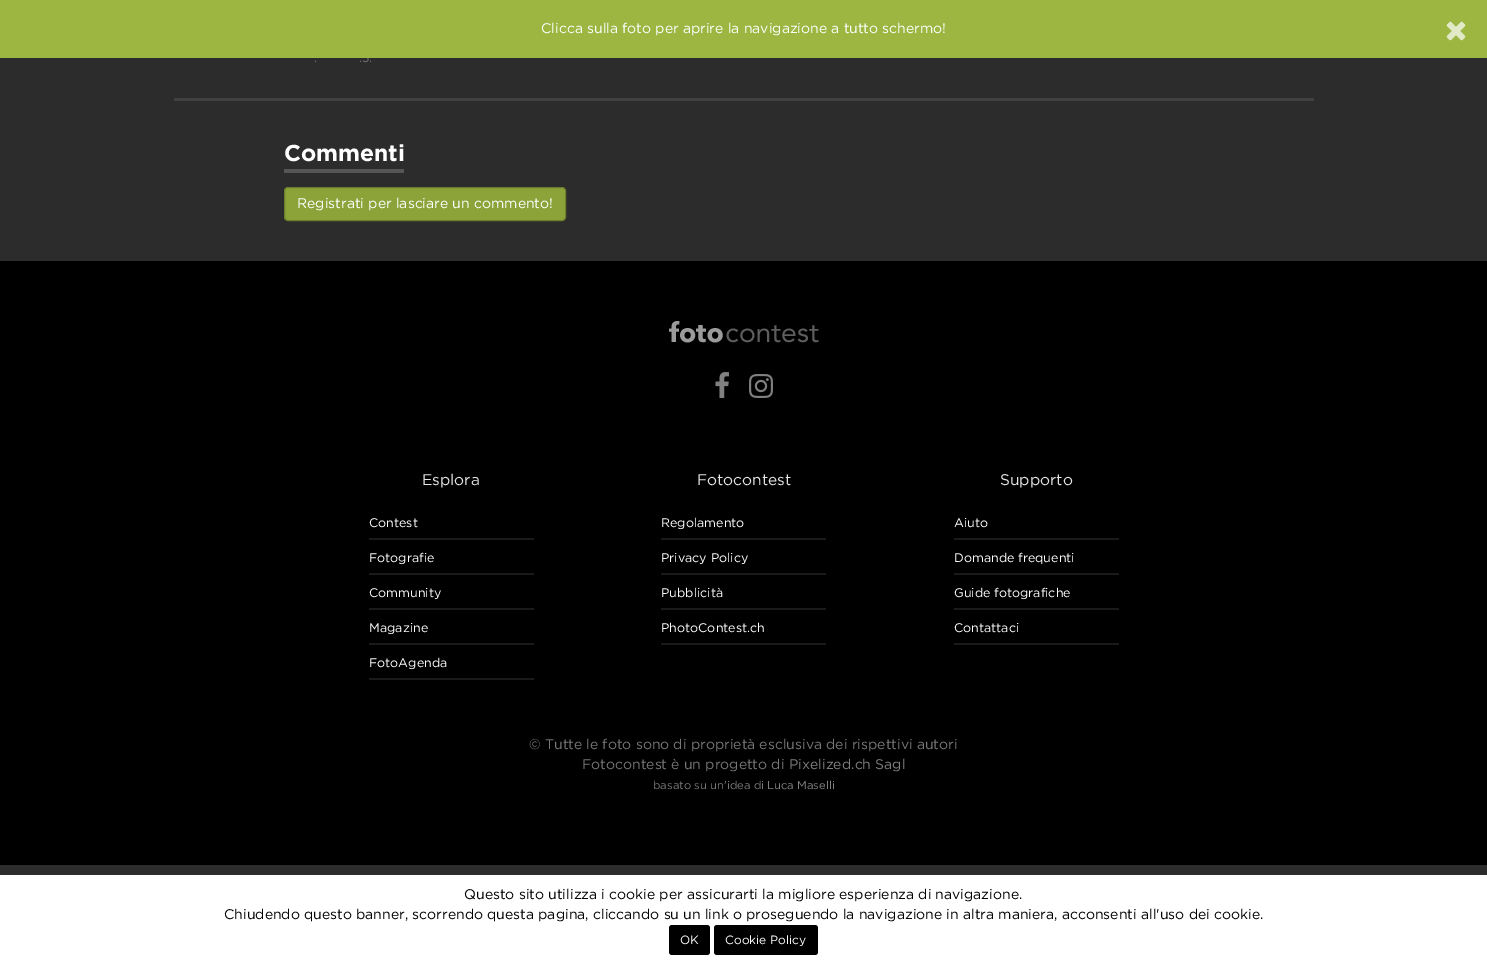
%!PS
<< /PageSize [1487 965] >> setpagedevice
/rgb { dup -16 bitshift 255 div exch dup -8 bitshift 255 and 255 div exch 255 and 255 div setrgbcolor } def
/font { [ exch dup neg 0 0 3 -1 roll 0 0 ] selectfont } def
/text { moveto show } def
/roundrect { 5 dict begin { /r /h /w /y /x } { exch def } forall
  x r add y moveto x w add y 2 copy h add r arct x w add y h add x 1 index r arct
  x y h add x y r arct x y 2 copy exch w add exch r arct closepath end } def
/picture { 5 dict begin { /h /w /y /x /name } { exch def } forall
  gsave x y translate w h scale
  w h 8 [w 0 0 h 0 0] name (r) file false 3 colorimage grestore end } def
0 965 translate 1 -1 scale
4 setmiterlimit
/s1 { /Gotham-Regular 12 font 16#777777 rgb } def
/s2 { /Gotham-Regular 14 font 16#FFFFFF rgb } def
/s3 { /Gotham-Bold 23 font 16#FFFFFF rgb } def
/s4 { /Gotham-Regular 15.5 font 16#E6E6E6 rgb } def
/s5 { /Gotham-Regular 12.5 font 16#FFFFFF rgb } def
/s6 { /Gotham-Regular 14 font 16#777777 rgb } def
/s7 { /Gotham-Regular 14 font 16#808080 rgb } def
/s8 { /Gotham-Regular 11.25 font 16#777777 rgb } def
/s9 { /Gotham-Regular 11.25 font 16#808080 rgb } def
/s10 { /Gotham-Regular 14 font 16#000000 rgb } def
/s11 { /Gotham-Regular 12 font 16#FFFFFF rgb } def
16#2C2C2C rgb
0 0 1487 965 rectfill
s1
(.5.) 359 62 text
16#9CB641 rgb
0 0 1487 58 rectfill
s2
(Clicca sulla foto per aprire la navigazione a tutto schermo!) 541 33 text
(pic1.raw) 1446 21 20 20 picture
s1
(.) 314 62 text
16#414141 rgb
174 98 1140 3 rectfill
s3
(Commenti) 284 161 text
16#565656 rgb
284 169 120 4 rectfill
16#8CA33A rgb
284.5 187.5 281 33 3.5 roundrect gsave fill grestore
16#6C7E2D rgb
stroke
s2
(Registrati per lasciare un commento!) 297 208 text
16#000000 rgb
0 261 1487 604 rectfill
(pic2.raw) 669 321 150 22 picture
(pic3.raw) 715 372 14 26 picture
(pic4.raw) 749 374 24 24 picture
s4
(Esplora) 422 485 text
16#1A1A1A rgb
369 538 165 2 rectfill
s5
(Contest) 369 527 text
16#1A1A1A rgb
369 573 165 2 rectfill
s5
(Fotografie) 369 562 text
16#1A1A1A rgb
369 608 165 2 rectfill
s5
(Community) 369 597 text
16#1A1A1A rgb
369 643 165 2 rectfill
s5
(Magazine) 369 632 text
16#1A1A1A rgb
369 678 165 2 rectfill
s5
(FotoAgenda) 369 667 text
s4
(Fotocontest) 697 485 text
16#1A1A1A rgb
661 538 165 2 rectfill
s5
(Regolamento) 661 527 text
16#1A1A1A rgb
661 573 165 2 rectfill
s5
(Privacy Policy) 661 562 text
16#1A1A1A rgb
661 608 165 2 rectfill
s5
(Pubblicità) 661 597 text
16#1A1A1A rgb
661 643 165 2 rectfill
s5
(PhotoContest.ch) 661 632 text
s4
(Supporto) 1000 485 text
16#1A1A1A rgb
954 538 165 2 rectfill
s5
(Aiuto) 954 527 text
16#1A1A1A rgb
954 573 165 2 rectfill
s5
(Domande frequenti) 954 562 text
16#1A1A1A rgb
954 608 165 2 rectfill
s5
(Guide fotografiche) 954 597 text
16#1A1A1A rgb
954 643 165 2 rectfill
s5
(Contattaci) 954 632 text
s6
(© Tutte le foto sono di proprietà esclusiva dei rispettivi autori) 529 749 text
(Fotocontest è un progetto di) 582 769 text
s7
(Pixelized.ch Sagl) 789 769 text
s8
(basato su un'idea di) 653 789 text
s9
(Luca Maselli) 767 789 text
16#FFFFFF rgb
0 875 1487 90 rectfill
s10
(Questo sito utilizza i cookie per assicurarti la migliore esperienza di navigazione.) 464 899 text
(Chiudendo questo banner, scorrendo questa pagina, cliccando su un link o proseguendo la navigazione in altra maniera, acconsenti all'uso dei cookie.) 224 919 text
669 925 41 30 3 roundrect fill
s11
(OK) 680 944 text
16#000000 rgb
714 925 104 30 3 roundrect fill
s11
(Cookie Policy) 725 944 text
showpage
